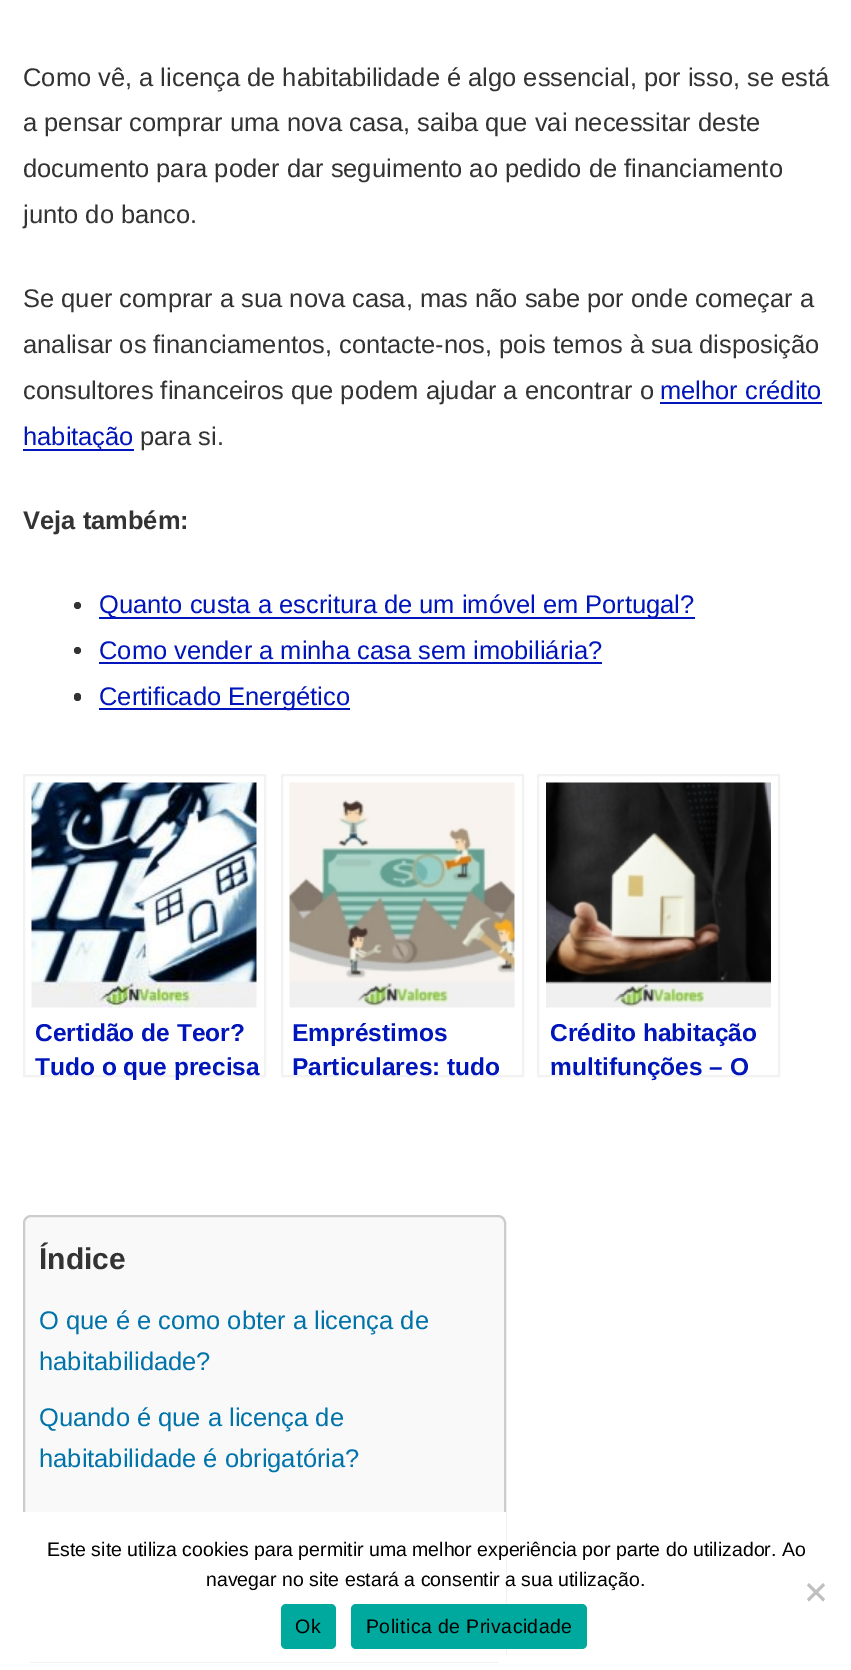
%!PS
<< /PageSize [851 1670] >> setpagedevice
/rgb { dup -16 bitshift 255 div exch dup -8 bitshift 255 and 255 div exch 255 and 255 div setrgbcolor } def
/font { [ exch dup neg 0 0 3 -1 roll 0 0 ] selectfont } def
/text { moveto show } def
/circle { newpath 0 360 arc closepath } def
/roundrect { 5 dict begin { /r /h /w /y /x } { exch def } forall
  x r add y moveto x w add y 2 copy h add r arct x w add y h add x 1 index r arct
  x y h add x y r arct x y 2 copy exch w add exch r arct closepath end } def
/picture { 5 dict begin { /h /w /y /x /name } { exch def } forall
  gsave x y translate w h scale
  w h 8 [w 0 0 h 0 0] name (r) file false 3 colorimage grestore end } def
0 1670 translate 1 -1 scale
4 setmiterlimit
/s1 { /LiberationSans-Regular 25.5 font 16#333333 rgb } def
/s2 { /LiberationSans-Regular 25.5 font 16#0015BA rgb } def
/s3 { /LiberationSans-Bold 25.5 font 16#333333 rgb } def
/s4 { /LiberationSans-Bold 24.5 font 16#0015BA rgb } def
/s5 { /LiberationSans-Bold 30 font 16#333333 rgb } def
/s6 { /LiberationSans-Regular 25.5 font 16#0073AA rgb } def
/s7 { /LiberationSans-Regular 19.5 font 16#000000 rgb } def
16#FFFFFF rgb
0 0 851 1670 rectfill
s1
(Como vê, a licença de habitabilidade é algo essencial, por isso, se está) 23 86 text
(a pensar comprar uma nova casa, saiba que vai necessitar deste) 23 131 text
(documento para poder dar seguimento ao pedido de financiamento) 23 177 text
(junto do banco.) 23 223 text
(Se quer comprar a sua nova casa, mas não sabe por onde começar a) 23 307 text
(analisar os financiamentos, contacte-nos, pois temos à sua disposição) 23 353 text
(consultores financeiros que podem ajudar a encontrar o) 23 399 text
s2
(melhor crédito) 660 399 text
660 402 162 2 rectfill
23 449 111 2 rectfill
(habitação) 23 445 text
s1
(para si.) 140 445 text
s3
(Veja também:) 23 529 text
77.5 605.5 3.5 circle fill
16#0015BA rgb
99 617 596 2 rectfill
s2
(Quanto custa a escritura de um imóvel em Portugal?) 99 613 text
16#333333 rgb
77.5 650.5 3.5 circle fill
s2
(Como vender a minha casa sem imobiliária?) 99 659 text
99 662 503 2 rectfill
16#333333 rgb
74 693 7 8 3.5 roundrect fill
16#0015BA rgb
99 708 251 2 rectfill
(Certificado Energético) 99 705 text
16#F2F2F2 rgb
2 setlinewidth
24 775 241 301 rectstroke
(pic1.raw) 31 782 226 226 picture
s4
(Certidão de Teor?) 35 1041 text
gsave
35 1016 225 69 rectclip
(Tudo o que precisa) 35 1075 text
grestore
16#F2F2F2 rgb
282 775 241 301 rectstroke
(pic2.raw) 289 782 226 226 picture
s4
(Empréstimos) 292 1041 text
(Particulares: tudo) 292 1075 text
16#F2F2F2 rgb
538 775 241 301 rectstroke
(pic3.raw) 546 782 225 226 picture
s4
(Crédito habitação) 550 1041 text
(multifunções – O) 550 1075 text
16#F9F9F9 rgb
24 1216 481 445 7 roundrect gsave fill grestore
16#CCCCCC rgb
stroke
s5
(Índice) 39 1269 text
s6
(O que é e como obter a licença de) 39 1329 text
(habitabilidade?) 39 1370 text
(Quando é que a licença de) 39 1426 text
(habitabilidade é obrigatória?) 39 1467 text
16#FFFFFF rgb
23 1512 483 150 rectfill
s7
(Este site utiliza cookies para permitir uma melhor experiência por parte do utilizador. Ao) 47 1556 text
(navegar no site estará a consentir a sua utilização.) 206 1586 text
16#C0C0C0 rgb
823 1583 moveto 825 1585.5 lineto 809 1601.5 lineto 807 1599 lineto closepath fill
807 1585.5 moveto 809 1583 lineto 825 1599 lineto 823 1601.5 lineto closepath fill
16#00A99D rgb
281 1604 55 45 5 roundrect fill
16#000000 rgb
295 1633 moveto 0.4 0 (Ok) ashow
16#00A99D rgb
351 1604 236 45 5 roundrect fill
16#000000 rgb
366 1633 moveto 0.4 0 (Politica de Privacidade) ashow
showpage
